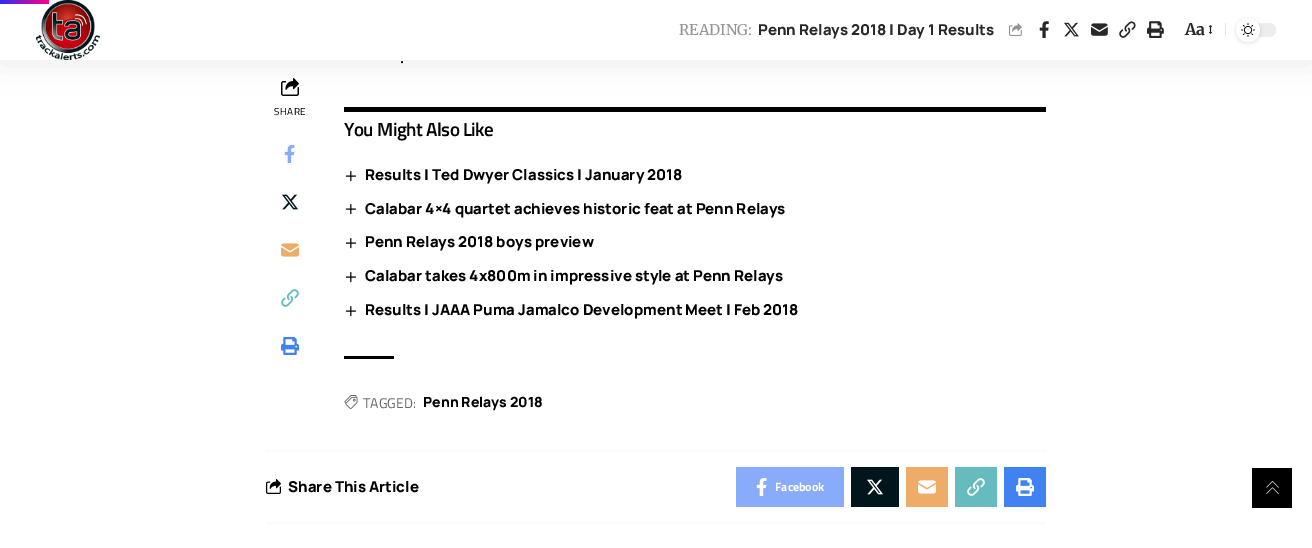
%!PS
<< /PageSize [1312 548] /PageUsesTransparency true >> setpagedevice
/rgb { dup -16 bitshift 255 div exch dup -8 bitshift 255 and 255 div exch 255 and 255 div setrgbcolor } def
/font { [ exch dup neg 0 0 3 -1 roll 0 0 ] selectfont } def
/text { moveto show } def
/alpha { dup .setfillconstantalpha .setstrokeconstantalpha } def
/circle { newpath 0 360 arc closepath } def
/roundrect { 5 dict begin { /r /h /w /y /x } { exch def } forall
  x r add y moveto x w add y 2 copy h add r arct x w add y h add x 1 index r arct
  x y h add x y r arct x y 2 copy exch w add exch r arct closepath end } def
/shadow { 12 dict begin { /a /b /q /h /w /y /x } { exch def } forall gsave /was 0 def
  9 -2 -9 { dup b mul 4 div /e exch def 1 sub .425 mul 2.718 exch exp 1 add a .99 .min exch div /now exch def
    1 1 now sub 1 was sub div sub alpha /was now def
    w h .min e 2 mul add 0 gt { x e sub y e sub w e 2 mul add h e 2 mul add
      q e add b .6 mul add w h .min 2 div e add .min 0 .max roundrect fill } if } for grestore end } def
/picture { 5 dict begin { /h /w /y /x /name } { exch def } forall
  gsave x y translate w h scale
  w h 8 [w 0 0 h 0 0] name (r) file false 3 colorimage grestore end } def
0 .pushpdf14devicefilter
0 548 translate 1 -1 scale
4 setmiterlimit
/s1 { /Merriweather-Regular 14.75 font 16#949494 rgb } def
/s2 { /Manrope-ExtraBold 15 font 16#282828 rgb } def
/s3 { /Merriweather-Bold 16 font 16#282828 rgb } def
/s4 { /Merriweather-Regular 16 font 16#000000 rgb } def
/s5 { /Manrope-ExtraBold 15 font 16#000000 rgb } def
/s6 { /TitilliumWeb-Regular 14 font 16#666666 rgb } def
/s7 { /Manrope-ExtraBold 14 font 16#000000 rgb } def
/s8 { /TitilliumWeb-Bold 12 font 16#FFFFFF rgb } def
16#FFFFFF rgb
0 0 1312 548 rectfill
(pic10.raw) 281 78 18 18 picture
16#000000 rgb
344 107 702 5 rectfill
0 4 1312 60 0 15 0.07 shadow
16#FFFFFF rgb
0 0 1312 60 rectfill
(pic1.raw) 36 0 64 60 picture
gsave 0 0 moveto 47 0 lineto 48 0 49 1 49 2 curveto 49 3 48 4 47 4 curveto 0 4 lineto closepath clip newpath
<< /ShadingType 2 /ColorSpace /DeviceRGB /Coords [49 2 0 2] /Extend [true true] /Function << /FunctionType 2 /Domain [0 1] /C0 [1 0 0.518] /C1 [0.173 0.173 0.973] /N 1 >> >> shfill grestore
s1
(READING:) 679 35 text
s2
(Penn Relays 2018 | Day 1 Results) 758 35 text
(pic2.raw) 1009 23 13 13 picture
(pic3.raw) 1039 21 10 17 picture
(pic4.raw) 1064 22 15 15 picture
(pic5.raw) 1091 23 17 13 picture
(pic6.raw) 1119 21 17 17 picture
(pic7.raw) 1147 21 17 17 picture
s3
(Aa) 1185 35 text
(pic8.raw) 1208 25 5 9 picture
16#E4E4E4 rgb
1225 23 1 14 rectfill
16#EDEDED rgb
1236 23 40 14 7 roundrect fill
16#000000 rgb
1236 19 24 24 12 2 0.12 shadow
16#FFFFFF rgb
1248 30 12 circle fill
(pic9.raw) 1241 23 14 14 picture
/TitilliumWeb-Regular 10 font
16#000000 rgb
274 115 moveto 0.5 0 (SHARE) ashow
(pic11.raw) 284 145 11 18 picture
(pic12.raw) 282 194 16 16 picture
(pic13.raw) 281 243 18 14 picture
(pic14.raw) 281 289 18 18 picture
(pic15.raw) 281 337 18 18 picture
s4
(.) 400 63 text
/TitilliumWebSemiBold-SemiBold 19 font
344 136 moveto -0.5 0 (You Might Also Like) ashow
(pic16.raw) 345 171 11 11 picture
s5
(Results | Ted Dwyer Classics | January 2018) 365 180 text
(pic16.raw) 345 204 11 11 picture
(Calabar 4×4 quartet achieves historic feat at Penn Relays) 365 214 text
(pic16.raw) 345 238 11 11 picture
(Penn Relays 2018 boys preview) 365 247 text
(pic16.raw) 345 272 11 11 picture
(Calabar takes 4x800m in impressive style at Penn Relays) 365 281 text
(pic16.raw) 345 306 11 11 picture
(Results | JAAA Puma Jamalco Development Meet | Feb 2018) 365 315 text
344 356 50 3 rectfill
(pic17.raw) 344 395 14 14 picture
s6
(TAGGED:) 363 408 text
s7
(Penn Relays 2018) 423 407 text
16#FBFBFB rgb
266 449 780 3 rectfill
(pic18.raw) 266 479 15 15 picture
s5
(Share This Article) 288 492 text
16#89ABFC rgb
736 467 108 40 rectfill
(pic19.raw) 756 478 11 18 picture
s8
(Facebook) 775 491 text
16#00151C rgb
851 467 48 40 rectfill
(pic20.raw) 867 479 16 16 picture
16#EFAB68 rgb
906 467 42 40 rectfill
(pic21.raw) 918 480 18 14 picture
16#66BBBF rgb
955 467 42 40 rectfill
(pic22.raw) 967 478 18 18 picture
16#4082F1 rgb
1004 467 42 40 rectfill
(pic23.raw) 1016 478 18 18 picture
16#FBFBFB rgb
266 522 780 3 rectfill
16#000000 rgb
1252 468 40 40 rectfill
(pic24.raw) 1266 481 13 13 picture
.poppdf14devicefilter showpage
